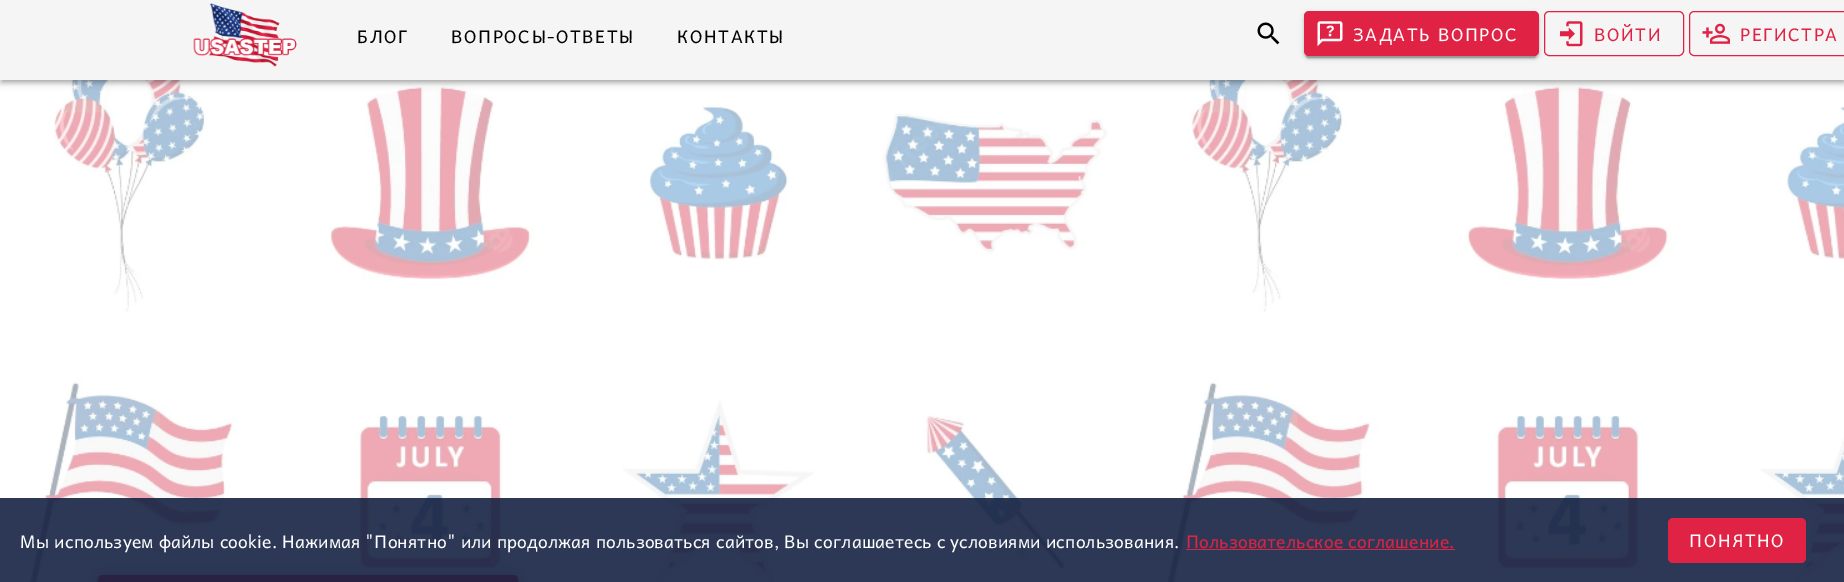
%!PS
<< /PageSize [1844 582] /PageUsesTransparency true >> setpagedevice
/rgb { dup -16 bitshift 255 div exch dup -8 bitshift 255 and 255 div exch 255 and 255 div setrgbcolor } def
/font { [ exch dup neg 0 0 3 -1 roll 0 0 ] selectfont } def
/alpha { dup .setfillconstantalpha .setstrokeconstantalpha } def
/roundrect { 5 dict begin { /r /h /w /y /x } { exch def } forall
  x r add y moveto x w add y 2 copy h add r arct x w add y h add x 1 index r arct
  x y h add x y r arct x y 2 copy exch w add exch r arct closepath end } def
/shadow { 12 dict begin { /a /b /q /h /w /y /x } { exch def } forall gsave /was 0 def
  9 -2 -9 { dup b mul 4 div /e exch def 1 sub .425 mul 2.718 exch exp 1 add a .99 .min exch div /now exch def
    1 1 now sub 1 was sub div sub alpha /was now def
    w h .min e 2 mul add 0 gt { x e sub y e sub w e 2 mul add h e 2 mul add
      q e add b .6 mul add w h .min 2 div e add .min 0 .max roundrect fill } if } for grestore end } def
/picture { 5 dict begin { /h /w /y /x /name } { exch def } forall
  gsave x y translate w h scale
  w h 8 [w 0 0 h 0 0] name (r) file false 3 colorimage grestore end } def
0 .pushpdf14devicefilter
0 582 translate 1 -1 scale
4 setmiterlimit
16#FFFFFF rgb
0 0 1844 582 rectfill
(pic1.raw) 29 80 1815 502 picture
16#000000 rgb
0 1 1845 80 0 5 0.12 shadow
0 4 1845 80 0 2.5 0.14 shadow
3 6 1840 75 0 2 0.2 shadow
16#F5F5F5 rgb
0 0 1844 80 rectfill
(pic2.raw) 193 3 104 64 picture
/Andika-Regular 17.5 font
16#000000 rgb
357 43 moveto 1.5 0 (БЛОГ) ashow
451 43 moveto 1.5 0 (ВОПРОСЫ-ОТВЕТЫ) ashow
677 43 moveto 1.5 0 (КОНТАКТЫ) ashow
(pic3.raw) 1257 22 23 23 picture
1304 13 235 45 5 3 0.12 shadow
1304 14 235 45 5 1 0.14 shadow
1306 18 230 40 2.5 0.5 0.2 shadow
16#E02344 rgb
1304 11 235 45 5 roundrect fill
(pic4.raw) 1317 21 26 26 picture
16#FFFFFF rgb
1353 41 moveto 1.5 0 (ЗАДАТЬ ВОПРОС) ashow
16#E02344 rgb
1544.5 11.5 139 44 4.5 roundrect stroke
(pic5.raw) 1560 21 23 26 picture
1594 41 moveto 1.5 0 (ВОЙТИ) ashow
1689.5 11.5 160 44 4.5 roundrect stroke
(pic6.raw) 1702 23 28 21 picture
1740 41 moveto 1.5 0 (РЕГИСТРА) ashow
16#000000 rgb
98 576 420 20 5 3 0.12 shadow
98 578 420 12 5 1 0.14 shadow
98 576 420 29 5 6 0.12 shadow
98 580 420 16 5 3 0.14 shadow
99 579 417 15 4 2.5 0.2 shadow
16#E02344 rgb
103 575 moveto 513 575 lineto 516 575 518 577 518 580 curveto 518 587 lineto 98 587 lineto 98 580 lineto 98 577 100 575 103 575 curveto closepath fill
0.9 alpha
16#152242 rgb
0 498 1844 84 rectfill
1 alpha
16#FFFFFF rgb
20 548 moveto 0.12 0 (Мы используем файлы cookie. Нажимая "Понятно" или продолжая пользоваться сайтов, Вы соглашаетесь с условиями использования.) ashow
16#E02344 rgb
1186 548 moveto 0.12 0 (Пользовательское соглашение.) ashow
1186 549 269 1 rectfill
1668 518 138 45 5 roundrect fill
16#FFFFFF rgb
1689 547 moveto 1.5 0 (ПОНЯТНО) ashow
.poppdf14devicefilter showpage
